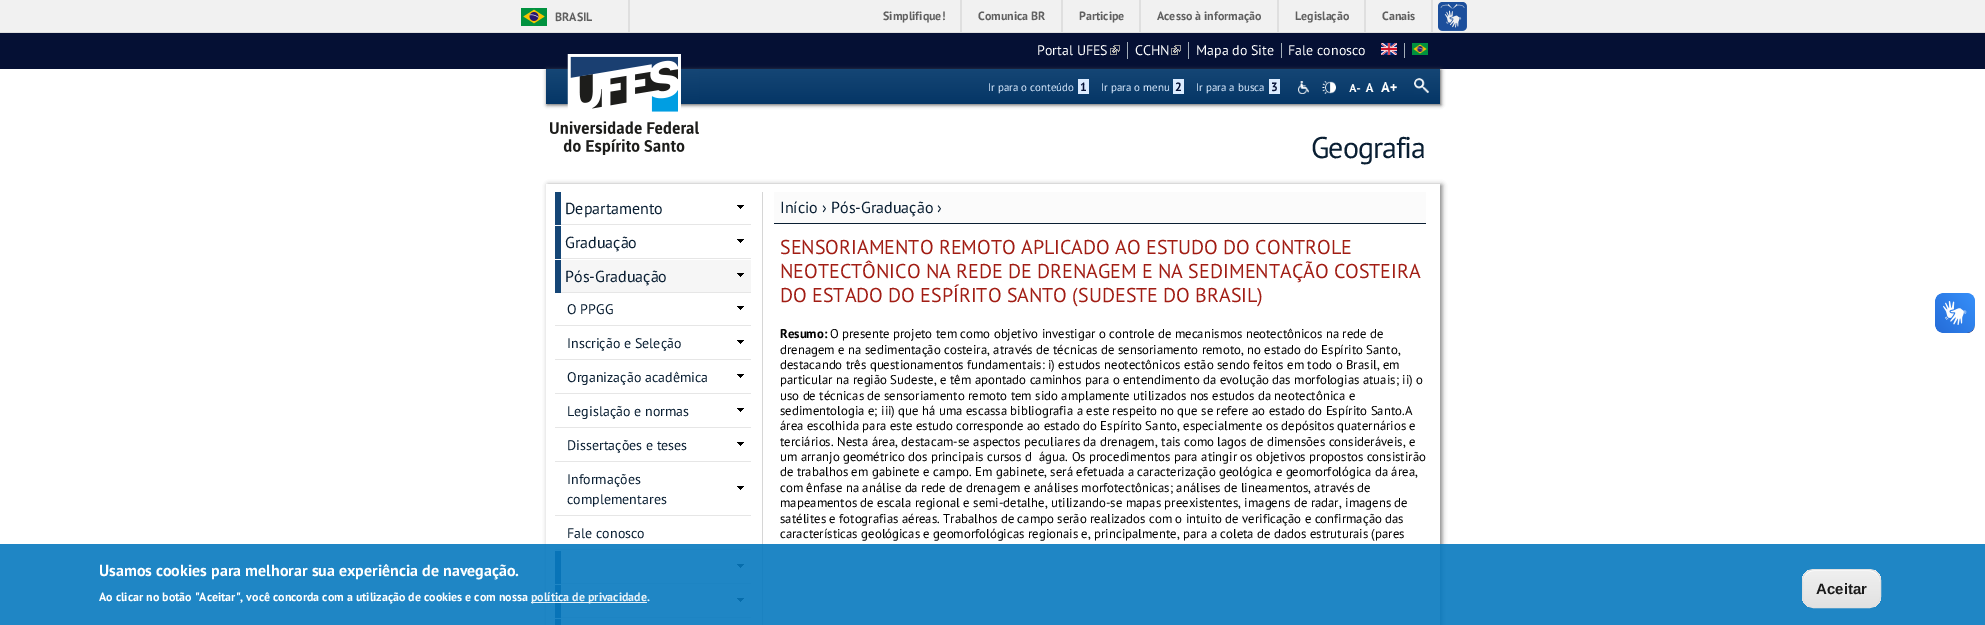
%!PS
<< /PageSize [1985 625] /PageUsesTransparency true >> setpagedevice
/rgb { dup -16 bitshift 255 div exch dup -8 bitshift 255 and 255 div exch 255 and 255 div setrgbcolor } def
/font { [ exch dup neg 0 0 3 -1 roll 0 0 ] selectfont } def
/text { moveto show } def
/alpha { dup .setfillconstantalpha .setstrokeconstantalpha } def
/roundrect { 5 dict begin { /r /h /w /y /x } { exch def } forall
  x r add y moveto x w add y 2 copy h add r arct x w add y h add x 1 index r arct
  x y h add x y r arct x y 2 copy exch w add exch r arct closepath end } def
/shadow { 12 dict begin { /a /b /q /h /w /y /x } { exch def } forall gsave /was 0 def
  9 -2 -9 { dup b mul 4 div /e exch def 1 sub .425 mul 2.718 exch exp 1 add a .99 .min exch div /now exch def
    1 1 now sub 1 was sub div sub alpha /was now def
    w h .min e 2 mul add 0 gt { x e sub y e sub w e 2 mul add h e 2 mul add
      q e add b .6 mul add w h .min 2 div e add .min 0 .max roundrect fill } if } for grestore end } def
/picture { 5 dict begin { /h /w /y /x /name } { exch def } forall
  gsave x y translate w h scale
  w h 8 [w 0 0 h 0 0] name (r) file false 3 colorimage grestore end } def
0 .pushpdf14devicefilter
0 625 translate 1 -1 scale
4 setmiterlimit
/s1 { /PTSans-Bold 12 font 16#606060 rgb } def
/s2 { /PTSans-Regular 14 font 16#FFFFFF rgb } def
/s3 { /PTSans-Regular 11 font 16#DCECFF rgb } def
/s4 { /PTSans-Bold 12 font 16#051034 rgb } def
/s5 { /PTSans-Regular 16 font 16#0A1F33 rgb } def
/s6 { /PTSans-Regular 14 font 16#0A1F33 rgb } def
/s7 { /PTSans-Regular 20 font 16#A11D14 rgb } def
/s8 { /PTSans-Bold 12.8 font 16#000000 rgb } def
/s9 { /PTSans-Regular 12.8 font 16#000000 rgb } def
/s10 { /PTSans-Bold 16 font 16#FFFFFF rgb } def
/s11 { /PTSans-Bold 12 font 16#FFFFFF rgb } def
/s12 { /PTSans-Bold 12 font 16#E8F3F9 rgb } def
/s13 { /LiberationSans-Bold 15 font 16#1A1A1A rgb } def
16#FFFFFF rgb
0 0 1985 625 rectfill
16#F1F1F1 rgb
0 0 1985 32 rectfill
16#DFDFDF rgb
0 32 1985 1 rectfill
628 0 2 32 rectfill
(pic1.raw) 521 8 26 18 picture
s1
(BRASIL) 555 21 text
16#DFDFDF rgb
960 0 2 32 rectfill
s1
(Simplifique!) 883 20 text
16#DFDFDF rgb
1061 0 2 32 rectfill
s1
(Comunica BR) 978 20 text
16#DFDFDF rgb
1139 0 2 32 rectfill
s1
(Participe) 1079 20 text
16#DFDFDF rgb
1277 0 2 32 rectfill
s1
(Acesso à informação) 1157 20 text
16#DFDFDF rgb
1364 0 2 32 rectfill
s1
(Legislação) 1295 20 text
16#DFDFDF rgb
1431 0 2 32 rectfill
s1
(Canais) 1382 20 text
(pic2.raw) 1438 2 29 29 picture
16#051034 rgb
0 33 1985 36 rectfill
16#A4AEB9 rgb
1127 42 1 17 rectfill
s2
(Portal UFES) 1037 55 text
(pic3.raw) 1110 45 10 10 picture
16#A4AEB9 rgb
1188 42 1 17 rectfill
s2
(CCHN) 1135 55 text
(pic3.raw) 1171 45 10 10 picture
16#A4AEB9 rgb
1281 43 1 15 rectfill
s2
(Mapa do Site) 1196 55 text
(Fale conosco) 1288 55 text
16#A4AEB9 rgb
1404 43 1 15 rectfill
(pic4.raw) 1381 43 16 12 picture
(pic5.raw) 1412 43 16 12 picture
16#595959 rgb
547 70 894 35 0 2 1 shadow
gsave 546 69 moveto 1440 69 lineto 1440 104 lineto 546 104 lineto closepath clip newpath
<< /ShadingType 2 /ColorSpace /DeviceRGB /Coords [993 69 993 104] /Extend [true true] /Function << /FunctionType 2 /Domain [0 1] /C0 [0.082 0.275 0.459] /C1 [0.02 0.212 0.4] /N 1 >> >> shfill grestore
(pic6.raw) 550 54 149 101 picture
s3
(Ir para o conteúdo) 988 91 text
1078 79 11 15 rectfill
s4
(1) 1080 91 text
s3
(Ir para o menu) 1101 91 text
1173 79 11 15 rectfill
s4
(2) 1175 91 text
s3
(Ir para a busca) 1196 91 text
1269 79 11 15 rectfill
s4
(3) 1271 91 text
(pic7.raw) 1298 81 11 13 picture
(pic8.raw) 1322 81 14 13 picture
(pic9.raw) 1349 84 12 8 picture
(pic10.raw) 1365 83 9 9 picture
(pic11.raw) 1381 82 16 10 picture
(pic12.raw) 1414 78 15 16 picture
/PTSans-Regular 30 font
16#0A1F33 rgb
1311 158 moveto -1 0 (Geografia) ashow
gsave
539 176 moveto 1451 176 lineto 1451 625 lineto 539 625 lineto closepath 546 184 moveto 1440 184 lineto 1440 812 lineto 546 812 lineto closepath eoclip newpath
16#808080 rgb
548 185 894 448 0 2.5 1 shadow
grestore
16#154676 rgb
555 192 6 33 rectfill
(pic13.raw) 737 205 7 4 picture
16#E6E6E6 rgb
561 224 190 1 rectfill
s5
(Departamento) 565 214 text
16#154676 rgb
555 226 6 33 rectfill
(pic13.raw) 737 239 7 4 picture
16#E6E6E6 rgb
561 258 190 1 rectfill
s5
(Graduação) 565 248 text
16#154676 rgb
555 260 6 33 rectfill
16#F6F6F6 rgb
561 260 190 32 rectfill
(pic14.raw) 737 273 7 4 picture
16#E6E6E6 rgb
561 292 190 1 rectfill
s5
(Pós-Graduação) 565 282 text
(pic13.raw) 737 306 7 4 picture
16#E6E6E6 rgb
555 325 196 1 rectfill
s6
(O PPGG) 567 314 text
(pic13.raw) 737 340 7 4 picture
16#E6E6E6 rgb
555 359 196 1 rectfill
s6
(Inscrição e Seleção) 567 348 text
(pic13.raw) 737 374 7 4 picture
16#E6E6E6 rgb
555 393 196 1 rectfill
s6
(Organização acadêmica) 567 382 text
(pic13.raw) 737 408 7 4 picture
16#E6E6E6 rgb
555 427 196 1 rectfill
s6
(Legislação e normas) 567 416 text
(pic13.raw) 737 442 7 4 picture
16#E6E6E6 rgb
555 461 196 1 rectfill
s6
(Dissertações e teses) 567 450 text
(pic13.raw) 737 486 7 4 picture
16#E6E6E6 rgb
555 515 196 1 rectfill
s6
(Informações) 567 484 text
(complementares) 567 504 text
16#E6E6E6 rgb
555 549 196 1 rectfill
s6
(Fale conosco) 567 538 text
16#154676 rgb
555 551 6 33 rectfill
(pic13.raw) 737 564 7 4 picture
16#E6E6E6 rgb
561 583 190 1 rectfill
16#154676 rgb
555 585 6 33 rectfill
(pic13.raw) 737 598 7 4 picture
16#E6E6E6 rgb
561 617 190 1 rectfill
16#154676 rgb
555 619 6 6 rectfill
16#D6D6D6 rgb
762 192 1 433 rectfill
16#FBFBFB rgb
774 192 652 31 rectfill
16#0A1F33 rgb
774 223 652 1 rectfill
s5
(Início › Pós-Graduação ›) 780 213 text
s7
(SENSORIAMENTO REMOTO APLICADO AO ESTUDO DO CONTROLE) 780 254 text
(NEOTECTÔNICO NA REDE DE DRENAGEM E NA SEDIMENTAÇÃO COSTEIRA) 780 278 text
(DO ESTADO DO ESPÍRITO SANTO \(SUDESTE DO BRASIL\)) 780 302 text
s8
(Resumo:) 780 338 text
s9
(O presente projeto tem como objetivo investigar o controle de mecanismos neotectônicos na rede de) 830 338 text
(drenagem e na sedimentação costeira, através de técnicas de sensoriamento remoto, no estado do Espírito Santo,) 780 354 text
(destacando três questionamentos fundamentais: i\) estudos neotectônicos estão sendo feitos em todo o Brasil, em) 780 369 text
(particular na região Sudeste, e têm apontado caminhos para o entendimento da evolução das morfologias atuais; ii\) o) 780 384 text
(uso de técnicas de sensoriamento remoto tem sido amplamente utilizados nos estudos da neotectônica e) 780 400 text
(sedimentologia e; iii\) que há uma escassa bibliografia a este respeito no que se refere ao estado do Espírito Santo.A) 780 415 text
(área escolhida para este estudo corresponde ao estado do Espírito Santo, especialmente os depósitos quaternários e) 780 430 text
(terciários. Nesta área, destacam-se aspectos peculiares da drenagem, tais como lagos de dimensões consideráveis, e) 780 446 text
(um arranjo geométrico dos principais cursos d) 780 461 text
(água. Os procedimentos para atingir os objetivos propostos consistirão) 1039 461 text
(de trabalhos em gabinete e campo. Em gabinete, será efetuada a caracterização geológica e geomorfológica da área,) 780 476 text
(com ênfase na análise da rede de drenagem e análises morfotectônicas; análises de lineamentos, através de) 780 492 text
(mapeamentos de escala regional e semi-detalhe, utilizando-se mapas preexistentes, imagens de radar, imagens de) 780 507 text
(satélites e fotografias aéreas. Trabalhos de campo serão realizados com o intuito de verificação e confirmação das) 780 523 text
(características geológicas e geomorfológicas regionais e, principalmente, para a coleta de dados estruturais \(pares) 780 538 text
(pic15.raw) 1935 293 40 40 picture
(pic16.raw) 1935 293 40 40 picture
0.9 alpha
16#0779BF rgb
0 544 1985 81 rectfill
1 alpha
s10
(Usamos cookies para melhorar sua experiência de navegação.) 99 576 text
s11
(Ao clicar no botão "Aceitar", você concorda com a utilização de cookies e com nossa) 99 601 text
0.9 alpha
531 602 116 1 rectfill
1 alpha
s12
(política de privacidade) 531 601 text
(.) 647 601 text
gsave
1802 569 79 39 12 roundrect clip newpath
gsave 1802 570 moveto 1881 570 lineto 1881 607 lineto 1802 607 lineto closepath clip newpath
<< /ShadingType 2 /ColorSpace /DeviceRGB /Coords [1842 570 1842 607] /Extend [true true] /Function << /FunctionType 3 /Domain [0 1] /Functions [<< /FunctionType 2 /Domain [0 1] /C0 [0.937 0.937 0.937] /C1 [0.937 0.937 0.937] /N 1 >> << /FunctionType 2 /Domain [0 1] /C0 [0.937 0.937 0.937] /C1 [0.886 0.886 0.886] /N 1 >>] /Bounds [0.05] /Encode [0 1 0 1] >> >> shfill grestore
grestore
16#FFFFFF rgb
1814 571 moveto 1869 571 lineto 1875 571 1880 576 1880 582 curveto 1880 569 1869 570 1860 570 curveto 1823 570 lineto 1814 570 1803 569 1803 582 curveto 1803 576 1808 571 1814 571 curveto closepath fill
16#E0E0E0 rgb
1802.5 569.5 78 38 11.5 roundrect stroke
s13
(Aceitar) 1816 594 text
.poppdf14devicefilter showpage
